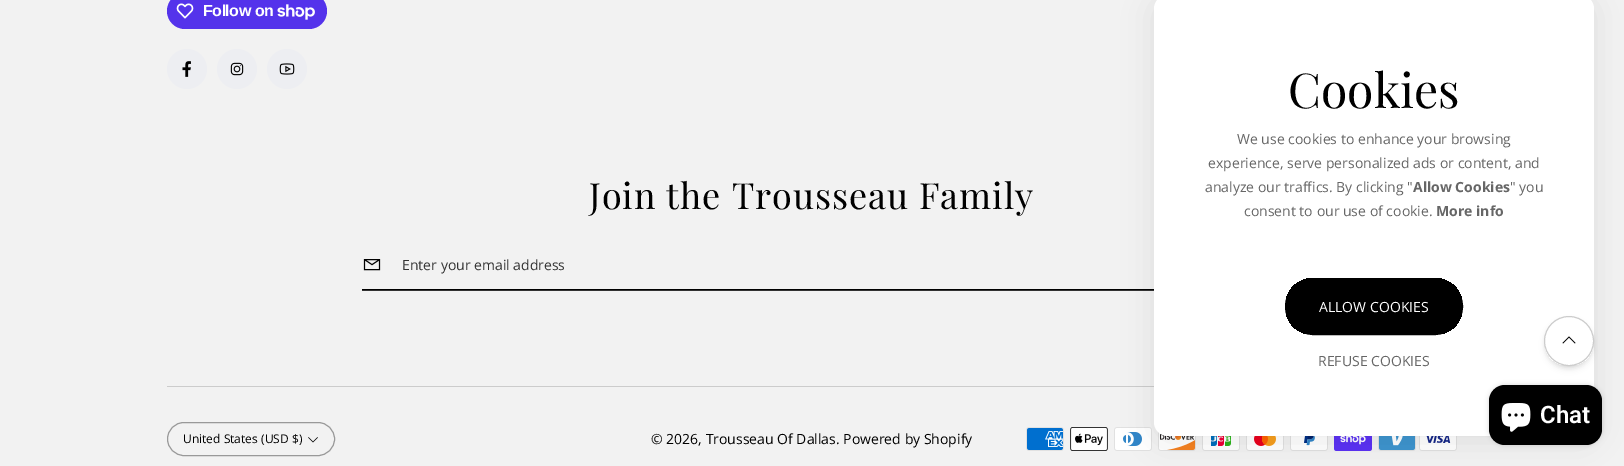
%!PS
<< /PageSize [1624 466] /PageUsesTransparency true >> setpagedevice
/rgb { dup -16 bitshift 255 div exch dup -8 bitshift 255 and 255 div exch 255 and 255 div setrgbcolor } def
/font { [ exch dup neg 0 0 3 -1 roll 0 0 ] selectfont } def
/text { moveto show } def
/alpha { dup .setfillconstantalpha .setstrokeconstantalpha } def
/circle { newpath 0 360 arc closepath } def
/roundrect { 5 dict begin { /r /h /w /y /x } { exch def } forall
  x r add y moveto x w add y 2 copy h add r arct x w add y h add x 1 index r arct
  x y h add x y r arct x y 2 copy exch w add exch r arct closepath end } def
/shadow { 12 dict begin { /a /b /q /h /w /y /x } { exch def } forall gsave /was 0 def
  9 -2 -9 { dup b mul 4 div /e exch def 1 sub .425 mul 2.718 exch exp 1 add a .99 .min exch div /now exch def
    1 1 now sub 1 was sub div sub alpha /was now def
    w h .min e 2 mul add 0 gt { x e sub y e sub w e 2 mul add h e 2 mul add
      q e add b .6 mul add w h .min 2 div e add .min 0 .max roundrect fill } if } for grestore end } def
/picture { 5 dict begin { /h /w /y /x /name } { exch def } forall
  gsave x y translate w h scale
  w h 8 [w 0 0 h 0 0] name (r) file false 3 colorimage grestore end } def
0 .pushpdf14devicefilter
0 466 translate 1 -1 scale
4 setmiterlimit
/s1 { /OpenSans-Regular 14 font 16#333333 rgb } def
/s2 { /OpenSans-Regular 12 font 16#000000 rgb } def
/s3 { /OpenSans-Regular 14 font 16#000000 rgb } def
/s4 { /PlayfairDisplay-Regular 48 font 16#000000 rgb } def
/s5 { /OpenSans-Regular 14 font 16#666666 rgb } def
/s6 { /OpenSans-Bold 14 font 16#666666 rgb } def
/s7 { /OpenSans-Regular 14 font 16#FFFFFF rgb } def
/s8 { /Roboto-SemiBold 24 font 16#FFFFFF rgb } def
16#F2F2F2 rgb
0 0 1624 466 rectfill
16#5433EB rgb
167 -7 160 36 18 roundrect fill
(pic1.raw) 176 3 18 16 picture
/LiberationSans-Bold 16 font
16#FFFFFF rgb
203 16 moveto -0.5 0 (Follow on) ashow
(pic2.raw) 277 4 38 16 picture
16#EDEEF2 rgb
187 69 20 circle fill
(pic3.raw) 182 61 9 16 picture
237 69 20 circle fill
(pic4.raw) 230 62 14 14 picture
287 69 20 circle fill
(pic5.raw) 279 63 16 12 picture
16#333333 rgb
362 290 792 1 rectfill
/PlayfairDisplay-Regular 36 font
16#000000 rgb
589 209 moveto 1 0 (Join the Trousseau Family) ashow
362 289 792 1 rectfill
(pic6.raw) 363 259 18 12 picture
s1
(Enter your email address) 402 270 text
(pic12.raw) 1158 431 38 20 picture
16#CCCCCC rgb
167 386 987 1 rectfill
(pic11.raw) 1114 427 38 24 picture
(pic13.raw) 1202 436 38 15 picture
(pic14.raw) 1246 436 38 15 picture
(pic15.raw) 1290 436 38 15 picture
(pic16.raw) 1334 436 38 15 picture
(pic17.raw) 1378 436 38 15 picture
(pic18.raw) 1419 436 38 15 picture
16#000000 rgb
1154 0 440 441 14 15 0.08 shadow
16#FFFFFF rgb
1154 -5 440 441 14 roundrect fill
16#000000 rgb
1546 320 46 46 23 2 0.1 shadow
1545 321 48 48 24 3 0.1 shadow
gsave
1544 316 50 50 25 roundrect clip newpath
16#FFFFFF rgb
1545 316 48 49 rectfill
grestore
16#CCCCCC rgb
1569 341 24.5 circle stroke
(pic7.raw) 1562 336 14 8 picture
16#999999 rgb
167.5 422.5 167 33 16.5 roundrect stroke
s2
(United States \(USD $\)) 183 443 text
(pic8.raw) 308 437 10 6 picture
s3
(© 2026, Trousseau Of Dallas. Powered by Shopify) 651 444 text
(pic9.raw) 1026 427 38 24 picture
(pic10.raw) 1070 427 38 24 picture
s4
(Cookies) 1288 108 text
s5
(We use cookies to enhance your browsing) 1237 144 text
(experience, serve personalized ads or content, and) 1208 168 text
(analyze our traffics. By clicking ") 1205 192 text
s6
(Allow Cookies) 1413 192 text
s5
(" you) 1510 192 text
(consent to our use of cookie.) 1244 216 text
s6
(More info) 1436 216 text
gsave
1285 278 178 57 28.5 roundrect clip newpath
16#000000 rgb
1286 278 176 56 rectfill
grestore
16#000000 rgb
1285.5 278.5 177 56 28 roundrect stroke
s7
(ALLOW COOKIES) 1319 312 text
s5
(REFUSE COOKIES) 1318 366 text
16#000000 rgb
1489 385 113 60 16 2.5 0.15 shadow
1489 385 113 60 16 roundrect fill
(pic19.raw) 1501 403 30 29 picture
s8
(Chat) 1540 423 text
.poppdf14devicefilter showpage
